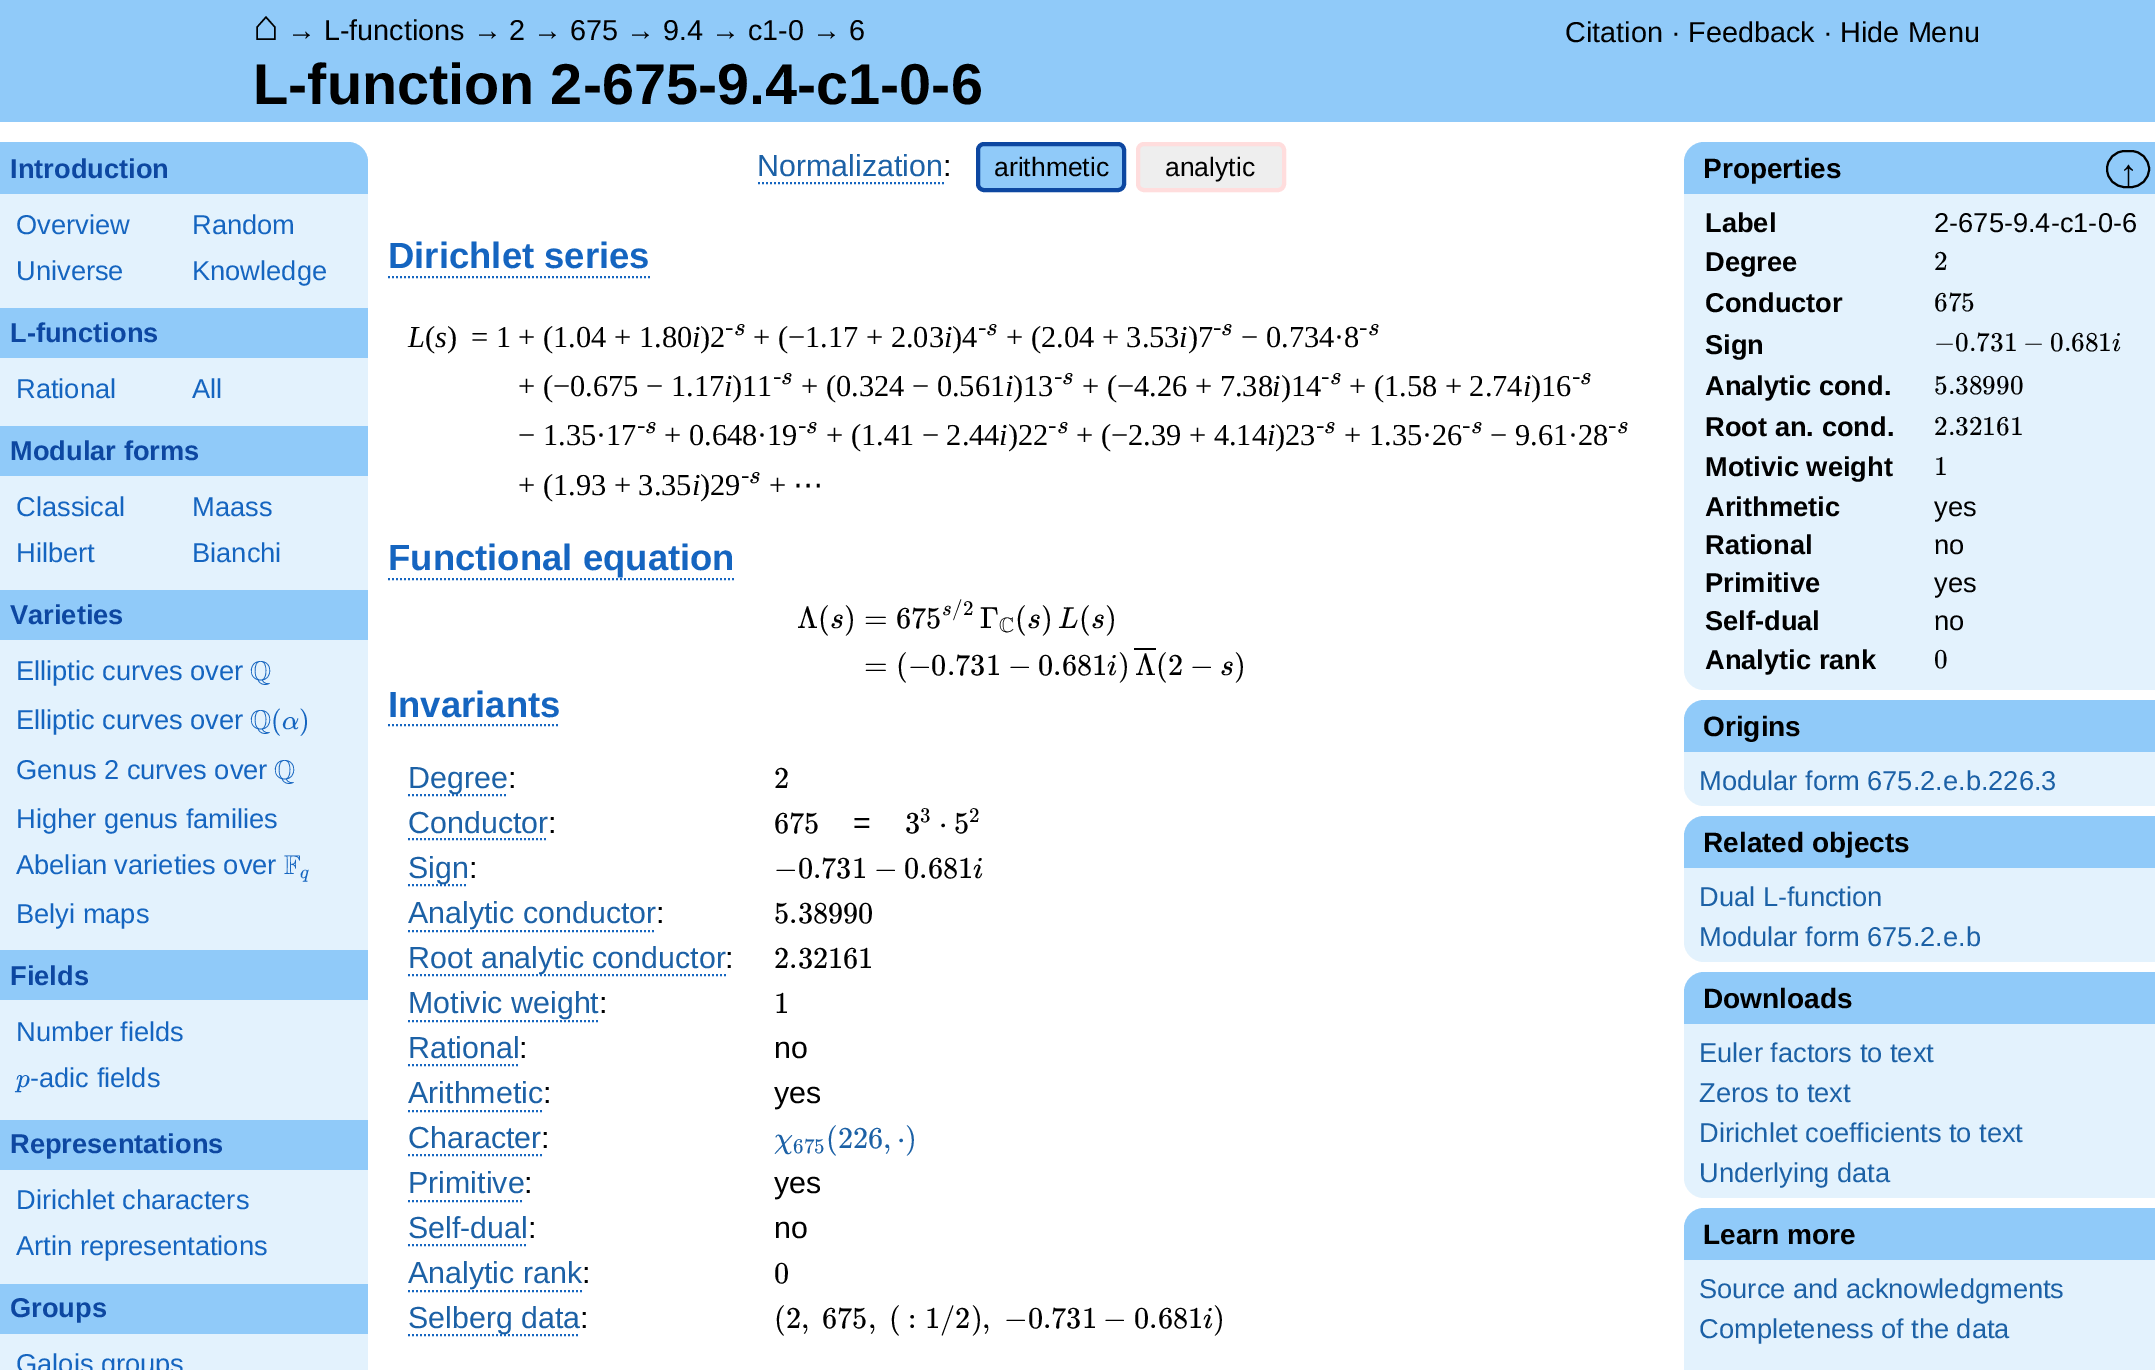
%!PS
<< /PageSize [2155 1370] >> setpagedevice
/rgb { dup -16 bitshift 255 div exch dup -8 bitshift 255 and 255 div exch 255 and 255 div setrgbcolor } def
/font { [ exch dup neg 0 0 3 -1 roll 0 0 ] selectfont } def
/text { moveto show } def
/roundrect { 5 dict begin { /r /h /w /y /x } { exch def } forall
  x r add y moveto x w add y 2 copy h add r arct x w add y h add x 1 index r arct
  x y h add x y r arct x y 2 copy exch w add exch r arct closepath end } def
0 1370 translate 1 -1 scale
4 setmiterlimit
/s1 { /LiberationSans-Regular 43 font 16#000000 rgb } def
/s2 { /LiberationSans-Regular 28.8 font 16#000000 rgb } def
/s3 { /LiberationSans-Bold 57.6 font 16#000000 rgb } def
/s4 { /LiberationSans-Bold 27.25 font 16#0D47A1 rgb } def
/s5 { /LiberationSans-Regular 27.25 font 16#1565C0 rgb } def
/s6 { /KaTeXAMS-Regular 27.25 font 16#1565C0 rgb } def
/s7 { /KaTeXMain-Regular 27.25 font 16#1565C0 rgb } def
/s8 { /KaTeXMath-Italic 27.25 font 16#1565C0 rgb } def
/s9 { /KaTeXMath-Italic 19 font 16#1565C0 rgb } def
/s10 { /LiberationSans-Regular 30.4 font 16#1C61A6 rgb } def
/s11 { /LiberationSans-Regular 30.4 font 16#000000 rgb } def
/s12 { /LiberationSans-Regular 26.5 font 16#000000 rgb } def
/s13 { /LiberationSans-Bold 36.5 font 16#1565C0 rgb } def
/s14 { /LiberationSerif-Italic 30.4 font 16#000000 rgb } def
/s15 { /LiberationSerif-Regular 30.4 font 16#000000 rgb } def
/s16 { /LiberationSerif-Italic 25 font 16#000000 rgb } def
/s17 { /KaTeXMath-Italic 25 font 16#000000 rgb } def
/s18 { /DejaVuSans-Regular 30.4 font 16#000000 rgb } def
/s19 { /KaTeXMain-Regular 30.4 font 16#000000 rgb } def
/s20 { /KaTeXMath-Italic 30.4 font 16#000000 rgb } def
/s21 { /KaTeXMath-Italic 21 font 16#000000 rgb } def
/s22 { /KaTeXMain-Regular 21 font 16#000000 rgb } def
/s23 { /KaTeXAMS-Regular 21 font 16#000000 rgb } def
/s24 { /KaTeXMath-Italic 30.4 font 16#1C61A6 rgb } def
/s25 { /KaTeXMain-Regular 21 font 16#1C61A6 rgb } def
/s26 { /KaTeXMain-Regular 30.4 font 16#1C61A6 rgb } def
/s27 { /LiberationSans-Bold 28 font 16#000000 rgb } def
/s28 { /LiberationSans-Bold 38 font 16#000000 rgb } def
/s29 { /LiberationSans-Bold 27.25 font 16#000000 rgb } def
/s30 { /LiberationSans-Regular 27.25 font 16#000000 rgb } def
/s31 { /KaTeXMain-Regular 27.25 font 16#000000 rgb } def
/s32 { /KaTeXMath-Italic 27.25 font 16#000000 rgb } def
/s33 { /LiberationSans-Regular 27.25 font 16#1C61A6 rgb } def
16#FFFFFF rgb
0 0 2155 1370 rectfill
16#90CAF9 rgb
0 0 2155 122 rectfill
s1
(⌂) 253 40 text
s2
(→ L-functions → 2 → 675 → 9.4 → c1-0 → 6) 287 40 text
(Citation · Feedback · Hide Menu) 1565 42 text
s3
(L-function 2-675-9.4-c1-0-6) 253 104 text
16#E3F2FD rgb
0 142 moveto 348 142 lineto 359 142 368 151 368 162 curveto 368 1370 lineto 368 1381 359 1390 348 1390 curveto 0 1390 lineto closepath fill
16#90CAF9 rgb
0 142 moveto 348 142 lineto 359 142 368 151 368 162 curveto 368 194 lineto 0 194 lineto closepath fill
s4
(Introduction) 10 178 text
s5
(Overview) 16 234 text
(Random) 192 234 text
(Universe) 16 280 text
(Knowledge) 192 280 text
16#90CAF9 rgb
0 308 368 50 rectfill
s4
(L-functions) 10 342 text
s5
(Rational) 16 398 text
(All) 192 398 text
16#90CAF9 rgb
0 426 368 50 rectfill
s4
(Modular forms) 10 460 text
s5
(Classical) 16 516 text
(Maass) 192 516 text
(Hilbert) 16 562 text
(Bianchi) 192 562 text
16#90CAF9 rgb
0 590 368 50 rectfill
s4
(Varieties) 10 624 text
s5
(Elliptic curves over) 16 680 text
s6
(Q) 250 680 text
s5
(Elliptic curves over) 16 729 text
s6
(Q) 250 729 text
s7
(\() 271 729 text
s8
(α) 282 729 text
s7
(\)) 299 729 text
s5
(Genus 2 curves over) 16 779 text
s6
(Q) 274 779 text
s5
(Higher genus families) 16 828 text
(Abelian varieties over) 16 874 text
s6
(F) 284 874 text
s9
(q) 300 878 text
s5
(Belyi maps) 16 923 text
16#90CAF9 rgb
0 950 368 50 rectfill
s4
(Fields) 10 985 text
s5
(Number fields) 16 1041 text
s8
(p) 16 1087 text
s5
(-adic fields) 30 1087 text
16#90CAF9 rgb
0 1120 368 50 rectfill
s4
(Representations) 10 1153 text
s5
(Dirichlet characters) 16 1209 text
(Artin representations) 16 1255 text
16#90CAF9 rgb
0 1284 368 50 rectfill
s4
(Groups) 10 1317 text
s5
(Galois groups) 16 1373 text
s10
(Normalization) 757 176 text
16#1565C0 rgb
2 setlinewidth
[2 2] 0 setdash
758 183 moveto 944 183 lineto stroke
s11
(:) 943 176 text
16#90CAF9 rgb
978 144 146 46 6 roundrect gsave fill grestore
16#0D47A1 rgb
4 setlinewidth
[] 0 setdash
stroke
s12
(arithmetic) 994 176 text
16#EEEEEE rgb
1138 144 146 46 6 roundrect gsave fill grestore
16#FFDDDD rgb
stroke
s12
(analytic) 1165 176 text
s13
(Dirichlet series) 388 268 text
2 setlinewidth
[2 2] 0 setdash
388 277 moveto 650 277 lineto stroke
s14
(i) 692 347 text
s15
(\)2) 700 347 text
s16
(-) 725 335 text
s17
(s) 734 335 text
s15
(+ \(−1.17 + 2.03) 753 347 text
s14
(i) 944 347 text
s15
(\)4) 952 347 text
s16
(-) 978 335 text
s17
(s) 986 335 text
s15
(+ \(2.04 + 3.53) 1006 347 text
s14
(i) 1179 347 text
s15
(\)7) 1188 347 text
s16
(-) 1213 335 text
s17
(s) 1221 335 text
s15
(− 0.734·8) 1241 347 text
s16
(-) 1359 335 text
s17
(s) 1368 335 text
s15
(+ \(−0.675 − 1.17) 518 396 text
s14
(i) 724 396 text
s15
(\)11) 732 396 text
s16
(-) 773 384 text
s17
(s) 781 384 text
s15
(+ \(0.324 − 0.561) 801 396 text
s14
(i) 1005 396 text
s15
(\)13) 1013 396 text
s16
(-) 1054 384 text
s17
(s) 1062 384 text
s15
(+ \(−4.26 + 7.38) 1082 396 text
s14
(i) 1272 396 text
s15
(\)14) 1281 396 text
s16
(-) 1321 384 text
s17
(s) 1330 384 text
s15
(+ \(1.58 + 2.74) 1349 396 text
s14
(i) 1523 396 text
s15
(\)16) 1531 396 text
s16
(-) 1572 384 text
s17
(s) 1580 384 text
s15
(− 1.35·17) 518 445 text
s16
(-) 637 433 text
s17
(s) 645 433 text
s15
(+ 0.648·19) 664 445 text
s16
(-) 798 433 text
s17
(s) 806 433 text
s15
(+ \(1.41 − 2.44) 826 445 text
s14
(i) 999 445 text
s15
(\)22) 1008 445 text
s16
(-) 1048 433 text
s17
(s) 1057 433 text
s15
(+ \(−2.39 + 4.14) 1076 445 text
s14
(i) 1267 445 text
s15
(\)23) 1275 445 text
s16
(-) 1316 433 text
s17
(s) 1324 433 text
s15
(+ 1.35·26) 1344 445 text
s16
(-) 1462 433 text
s17
(s) 1471 433 text
s15
(− 9.61·28) 1490 445 text
s16
(-) 1608 433 text
s17
(s) 1617 433 text
s15
(+ \(1.93 + 3.35) 518 495 text
s14
(i) 692 495 text
s15
(\)29) 700 495 text
s16
(-) 741 483 text
s17
(s) 749 483 text
s15
(+) 769 495 text
s18
(⋯) 793 495 text
s14
(L) 408 347 text
s15
(\() 425 347 text
s14
(s) 435 347 text
s15
(\)  = 1 + \(1.04 + 1.80) 447 347 text
s13
(Functional equation) 388 570 text
388 579 moveto 734 579 lineto stroke
s19
(Λ\() 797 628 text
s20
(s) 830 628 text
s19
(\)) 844 628 text
(=) 864 628 text
(=) 864 675 text
(675) 896 628 text
s21
(s) 942 615 text
s22
(/2) 952 615 text
s19
(Γ) 980 628 text
s23
(C) 999 632 text
s19
(\() 1015 628 text
s20
(s) 1027 628 text
s19
(\)) 1041 628 text
s20
(L) 1058 628 text
s19
(\() 1079 628 text
s20
(s) 1091 628 text
s19
(\)) 1105 628 text
(\(−0.731) 896 675 text
(−) 1008 675 text
(0.681) 1038 675 text
s20
(i) 1107 675 text
s19
(\)) 1118 675 text
1134 648 22 2 rectfill
(Λ) 1135 675 text
(\(2) 1156 675 text
(−) 1190 675 text
s20
(s) 1220 675 text
s19
(\)) 1234 675 text
s13
(Invariants) 388 717 text
388 725 moveto 560 725 lineto stroke
408 795 moveto 508 795 lineto stroke
s10
(Degree) 408 788 text
s11
(:) 508 788 text
s19
(2) 774 788 text
s10
(Conductor) 408 833 text
16#1565C0 rgb
408 839 moveto 548 839 lineto stroke
s11
(:) 548 833 text
s19
(675) 774 833 text
s11
(=) 853 833 text
s19
(3) 905 833 text
s22
(3) 920 822 text
s19
(⋅) 939 833 text
(5) 954 833 text
s22
(2) 969 822 text
16#1565C0 rgb
408 885 moveto 468 885 lineto stroke
s10
(Sign) 408 878 text
s11
(:) 469 878 text
s19
(−0.731) 774 878 text
(−) 874 878 text
(0.681) 904 878 text
s20
(i) 973 878 text
s10
(Analytic conductor) 408 923 text
16#1565C0 rgb
408 931 moveto 656 931 lineto stroke
s11
(:) 656 923 text
s19
(5.38990) 774 923 text
16#1565C0 rgb
408 975 moveto 726 975 lineto stroke
s10
(Root analytic conductor) 408 968 text
s11
(:) 725 968 text
s19
(2.32161) 774 968 text
s10
(Motivic weight) 408 1013 text
16#1565C0 rgb
408 1021 moveto 598 1021 lineto stroke
s11
(:) 599 1013 text
s19
(1) 774 1013 text
s10
(Rational) 408 1058 text
16#1565C0 rgb
408 1065 moveto 520 1065 lineto stroke
s11
(:) 519 1058 text
(no) 774 1058 text
s10
(Arithmetic) 408 1103 text
16#1565C0 rgb
408 1111 moveto 544 1111 lineto stroke
s11
(:) 543 1103 text
(yes) 774 1103 text
s10
(Character) 408 1148 text
16#1565C0 rgb
408 1155 moveto 542 1155 lineto stroke
s11
(:) 541 1148 text
s24
(χ) 774 1148 text
s25
(675) 793 1153 text
s26
(\(226,) 826 1148 text
(⋅\)) 897 1148 text
s10
(Primitive) 408 1193 text
16#1565C0 rgb
408 1201 moveto 524 1201 lineto stroke
s11
(:) 524 1193 text
(yes) 774 1193 text
s10
(Self-dual) 408 1238 text
16#1565C0 rgb
408 1245 moveto 528 1245 lineto stroke
s11
(:) 528 1238 text
(no) 774 1238 text
s10
(Analytic rank) 408 1283 text
16#1565C0 rgb
408 1291 moveto 582 1291 lineto stroke
s11
(:) 582 1283 text
s19
(0) 774 1283 text
16#1565C0 rgb
408 1335 moveto 580 1335 lineto stroke
s10
(Selberg data) 408 1328 text
s11
(:) 580 1328 text
s19
(\(2,) 774 1328 text
(675,) 822 1328 text
(\( :) 889 1328 text
(1/2\),) 925 1328 text
(−0.731) 1004 1328 text
(−) 1103 1328 text
(0.681) 1134 1328 text
s20
(i) 1203 1328 text
s19
(\)) 1213 1328 text
16#90CAF9 rgb
1704 142 moveto 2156 142 lineto 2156 194 lineto 1684 194 lineto 1684 162 lineto 1684 151 1693 142 1704 142 curveto closepath fill
s27
(Properties) 1703 178 text
[] 0 setdash
2107 151 42 36 18 roundrect stroke
s28
(↑) 2119 186 text
16#E3F2FD rgb
1684 194 moveto 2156 194 lineto 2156 690 lineto 1704 690 lineto 1693 690 1684 681 1684 670 curveto closepath fill
s29
(Label) 1705 232 text
s30
(2-675-9.4-c1-0-6) 1934 232 text
s29
(Degree) 1705 271 text
s31
(2) 1934 270 text
s29
(Conductor) 1705 312 text
s31
(675) 1934 311 text
s29
(Sign) 1705 354 text
s31
(−0.731) 1934 351 text
(−) 2023 351 text
(0.681) 2050 351 text
s32
(i) 2112 351 text
s29
(Analytic cond.) 1705 395 text
s31
(5.38990) 1934 394 text
s29
(Root an. cond.) 1705 436 text
s31
(2.32161) 1934 435 text
s29
(Motivic weight) 1705 476 text
s31
(1) 1934 475 text
s29
(Arithmetic) 1705 516 text
s30
(yes) 1934 516 text
s29
(Rational) 1705 554 text
s30
(no) 1934 554 text
s29
(Primitive) 1705 592 text
s30
(yes) 1934 592 text
s29
(Self-dual) 1705 630 text
s30
(no) 1934 630 text
s29
(Analytic rank) 1705 669 text
s31
(0) 1934 668 text
16#90CAF9 rgb
1704 700 moveto 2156 700 lineto 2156 752 lineto 1684 752 lineto 1684 720 lineto 1684 709 1693 700 1704 700 curveto closepath fill
s27
(Origins) 1703 736 text
16#E3F2FD rgb
1684 752 moveto 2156 752 lineto 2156 806 lineto 1704 806 lineto 1693 806 1684 797 1684 786 curveto closepath fill
s33
(Modular form 675.2.e.b.226.3) 1699 790 text
16#90CAF9 rgb
1704 816 moveto 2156 816 lineto 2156 868 lineto 1684 868 lineto 1684 836 lineto 1684 825 1693 816 1704 816 curveto closepath fill
s27
(Related objects) 1703 852 text
16#E3F2FD rgb
1684 868 moveto 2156 868 lineto 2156 962 lineto 1704 962 lineto 1693 962 1684 953 1684 942 curveto closepath fill
s33
(Dual L-function) 1699 906 text
(Modular form 675.2.e.b) 1699 946 text
16#90CAF9 rgb
1704 972 moveto 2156 972 lineto 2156 1024 lineto 1684 1024 lineto 1684 992 lineto 1684 981 1693 972 1704 972 curveto closepath fill
s27
(Downloads) 1703 1008 text
16#E3F2FD rgb
1684 1024 moveto 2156 1024 lineto 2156 1198 lineto 1704 1198 lineto 1693 1198 1684 1189 1684 1178 curveto closepath fill
s33
(Euler factors to text) 1699 1062 text
(Zeros to text) 1699 1102 text
(Dirichlet coefficients to text) 1699 1142 text
(Underlying data) 1699 1182 text
16#90CAF9 rgb
1704 1208 moveto 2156 1208 lineto 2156 1260 lineto 1684 1260 lineto 1684 1228 lineto 1684 1217 1693 1208 1704 1208 curveto closepath fill
s27
(Learn more) 1703 1244 text
16#E3F2FD rgb
1684 1260 471 110 rectfill
s33
(Source and acknowledgments) 1699 1298 text
(Completeness of the data) 1699 1338 text
showpage
